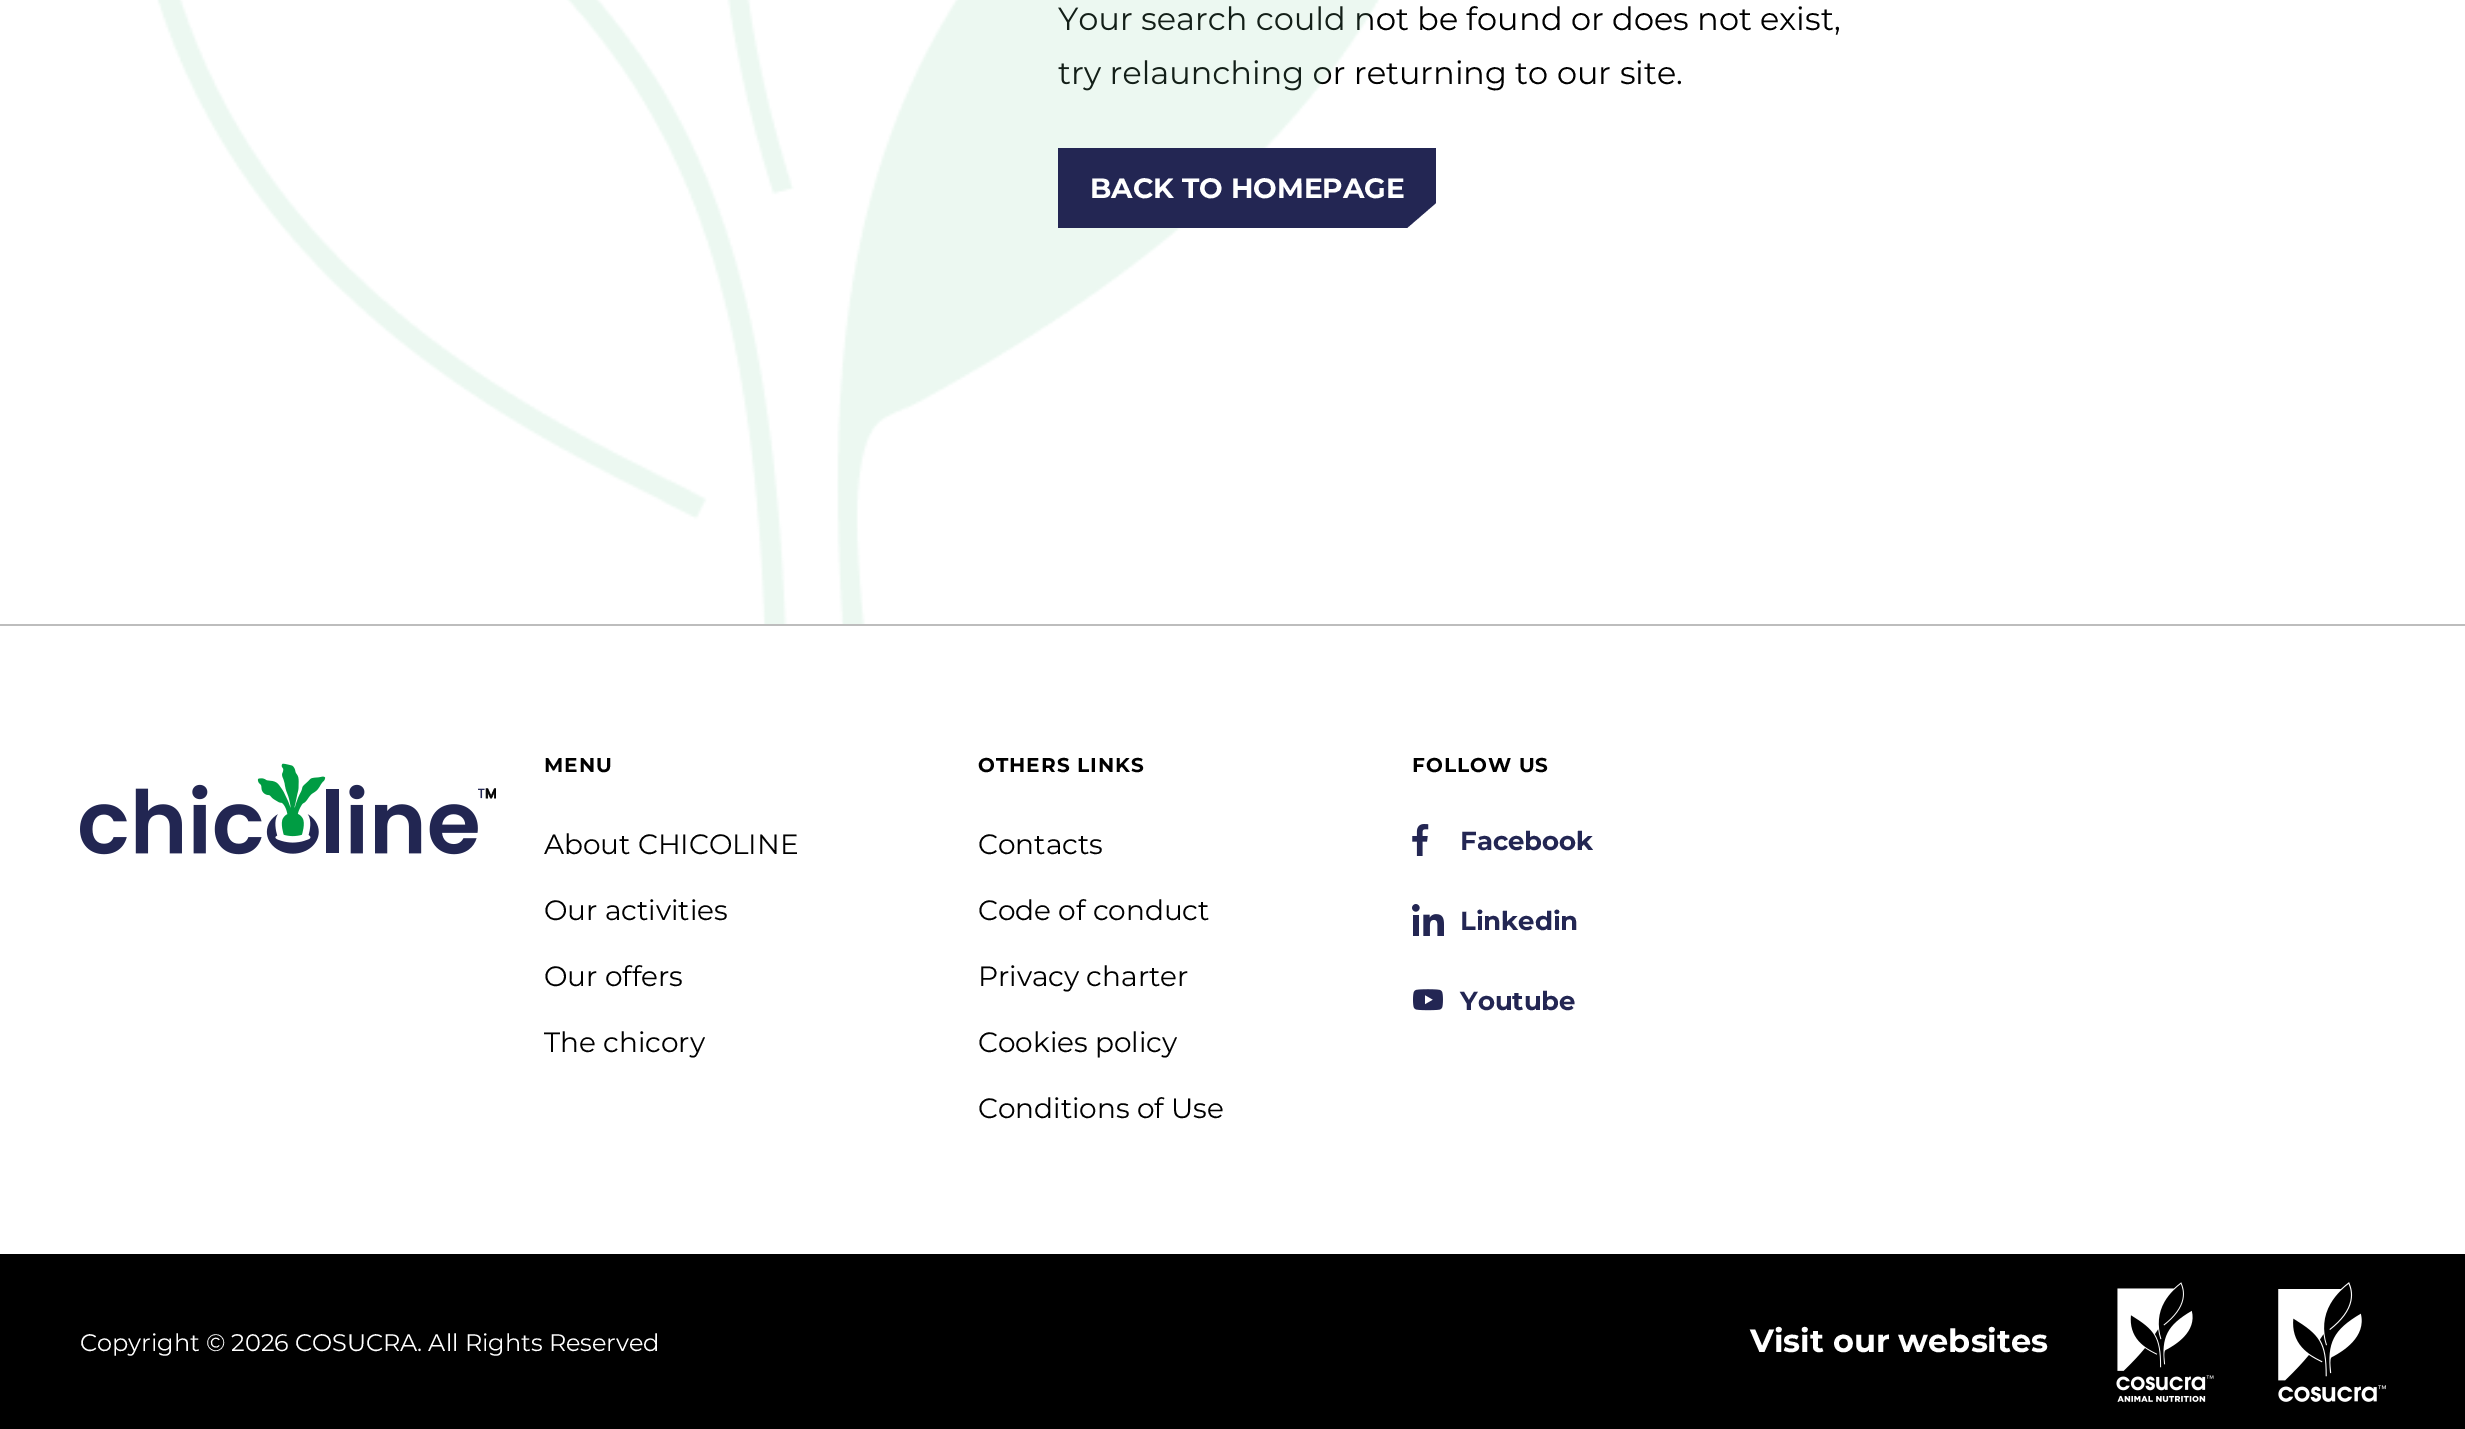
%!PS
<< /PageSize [2465 1429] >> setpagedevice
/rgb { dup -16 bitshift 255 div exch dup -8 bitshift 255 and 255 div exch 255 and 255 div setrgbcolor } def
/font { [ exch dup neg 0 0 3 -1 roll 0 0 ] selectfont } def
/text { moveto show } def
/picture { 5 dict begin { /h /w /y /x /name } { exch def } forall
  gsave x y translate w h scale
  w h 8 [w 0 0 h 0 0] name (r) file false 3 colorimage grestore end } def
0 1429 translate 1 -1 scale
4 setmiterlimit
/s1 { /Montserrat-Regular 32 font 16#000000 rgb } def
/s2 { /Montserrat-Bold 28 font 16#FFFFFF rgb } def
16#FFFFFF rgb
0 0 2465 1429 rectfill
s1
(Your search could not be found or does not exist,) 1058 30 text
(try relaunching or returning to our site.) 1058 84 text
(pic1.raw) 157 0 1222 624 picture
16#232653 rgb
1058 148 moveto 1058 228 lineto 1407 228 lineto 1436 203 lineto 1436 148 lineto closepath fill
s2
(BACK TO HOMEPAGE) 1090 198 text
16#BDBDBD rgb
0 624 2465 2 rectfill
(pic2.raw) 80 763 416 92 picture
/Montserrat-Bold 20 font
16#000000 rgb
544 772 moveto 1 0 (MENU) ashow
/Montserrat-Regular 28 font
544 854 moveto -0.05 0 (About CHICOLINE) ashow
544 920 moveto -0.05 0 (Our activities) ashow
544 986 moveto -0.05 0 (Our offers) ashow
544 1052 moveto -0.05 0 (The chicory) ashow
/Montserrat-Bold 20 font
978 772 moveto 1 0 (OTHERS LINKS) ashow
/Montserrat-Regular 28 font
978 854 moveto -0.05 0 (Contacts) ashow
978 920 moveto -0.05 0 (Code of conduct) ashow
978 986 moveto -0.05 0 (Privacy charter) ashow
978 1052 moveto -0.05 0 (Cookies policy) ashow
978 1118 moveto -0.05 0 (Conditions of Use) ashow
/Montserrat-Bold 20 font
1412 772 moveto 1 0 (FOLLOW US) ashow
(pic3.raw) 1412 824 17 32 picture
/Montserrat-Bold 26 font
16#232653 rgb
1460 850 moveto -0.05 0 (Facebook) ashow
(pic4.raw) 1412 904 32 32 picture
1460 930 moveto -0.05 0 (Linkedin) ashow
(pic5.raw) 1413 989 30 22 picture
1460 1010 moveto -0.05 0 (Youtube) ashow
16#000000 rgb
0 1254 2465 175 rectfill
/Montserrat-Regular 24 font
16#FFFFFF rgb
80 1351 moveto -0.05 0 (Copyright © 2026 COSUCRA. All Rights Reserved) ashow
/Montserrat-Bold 32 font
1750 1352 moveto -0.05 0 (Visit our websites) ashow
(pic6.raw) 2116 1282 98 120 picture
(pic7.raw) 2278 1282 108 120 picture
showpage
